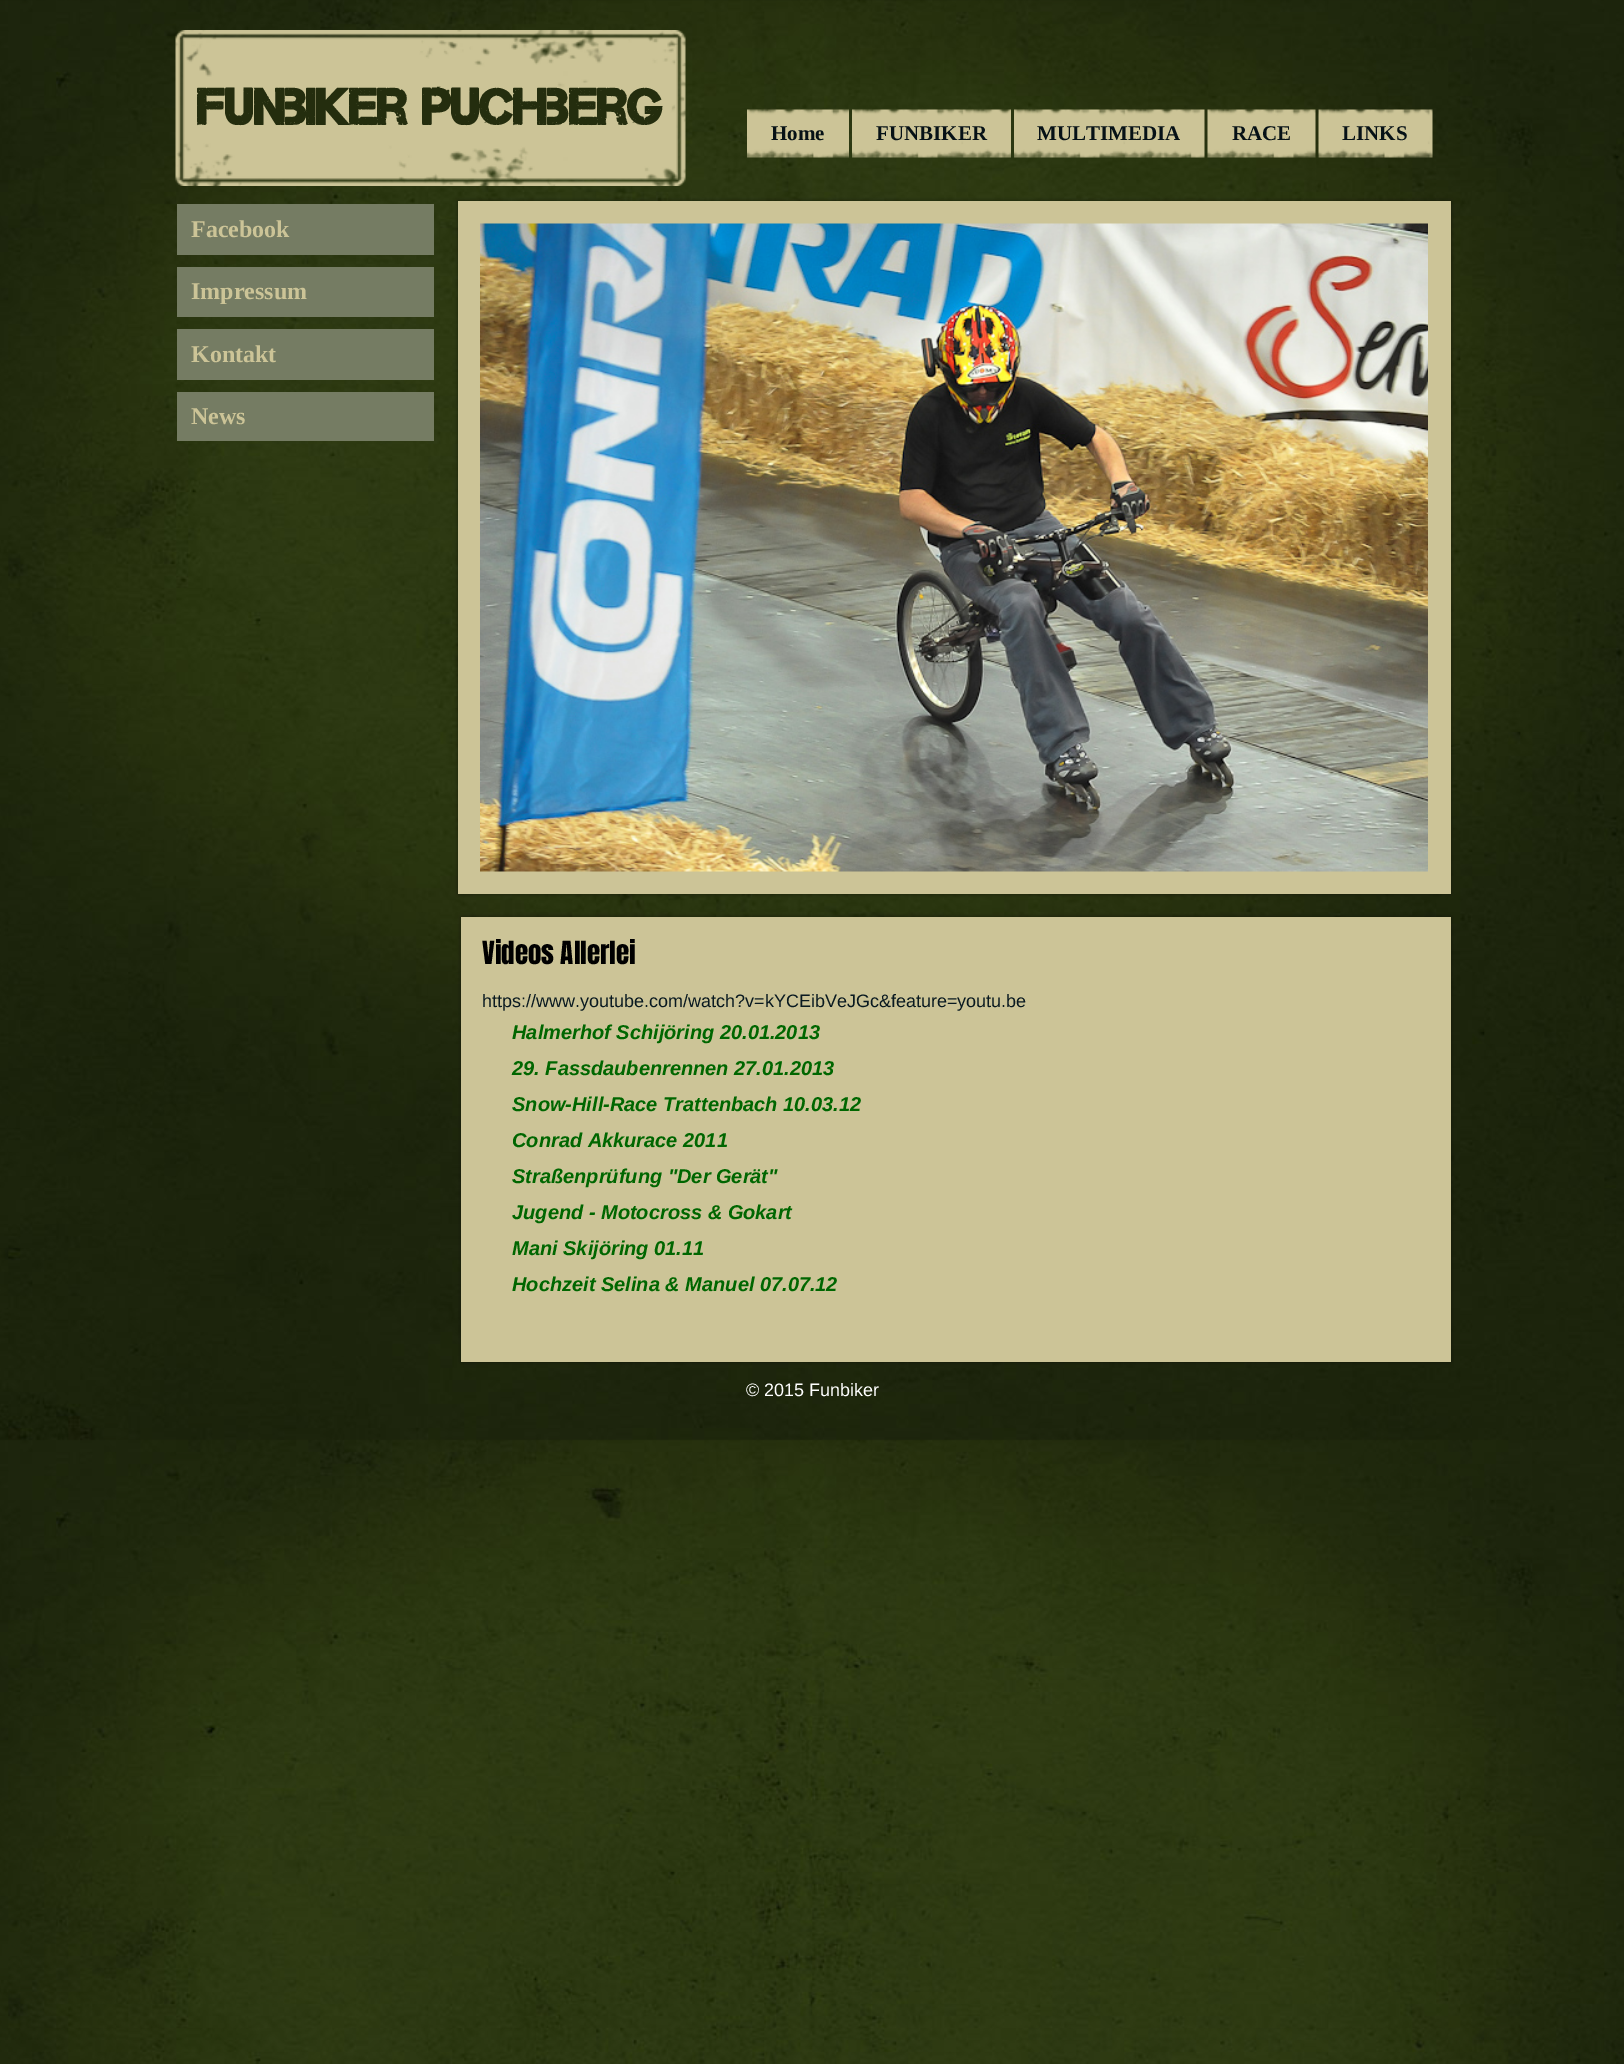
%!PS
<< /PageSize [1624 2064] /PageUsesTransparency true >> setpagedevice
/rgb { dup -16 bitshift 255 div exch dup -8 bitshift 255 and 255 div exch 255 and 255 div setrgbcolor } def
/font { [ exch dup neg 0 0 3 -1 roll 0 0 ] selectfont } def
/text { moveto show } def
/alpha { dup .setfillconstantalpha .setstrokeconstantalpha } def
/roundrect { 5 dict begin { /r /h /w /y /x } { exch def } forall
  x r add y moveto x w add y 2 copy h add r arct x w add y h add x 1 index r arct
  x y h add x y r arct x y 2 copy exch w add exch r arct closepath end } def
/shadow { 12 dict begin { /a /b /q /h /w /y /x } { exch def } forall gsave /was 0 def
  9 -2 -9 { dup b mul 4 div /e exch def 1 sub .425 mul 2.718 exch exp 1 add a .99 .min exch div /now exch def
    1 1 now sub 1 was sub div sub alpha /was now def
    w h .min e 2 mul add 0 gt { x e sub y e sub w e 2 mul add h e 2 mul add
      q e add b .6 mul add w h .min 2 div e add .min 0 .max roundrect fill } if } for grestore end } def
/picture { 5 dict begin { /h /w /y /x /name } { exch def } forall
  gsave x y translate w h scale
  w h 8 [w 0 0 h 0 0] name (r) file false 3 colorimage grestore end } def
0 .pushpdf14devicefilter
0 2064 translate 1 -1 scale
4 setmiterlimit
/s1 { /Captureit-Bold 51 font 16#242D0E rgb } def
/s2 { /LiberationSerif-Bold 21 font 16#061116 rgb } def
/s3 { /LiberationSerif-Bold 24 font 16#CCC497 rgb } def
/s4 { /Anton-Regular 27 font 16#000000 rgb } def
/s5 { /LiberationSans-Regular 18 font 16#091920 rgb } def
/s6 { /LiberationSans-BoldItalic 20 font 16#006600 rgb } def
/s7 { /LiberationSans-Regular 18 font 16#FFFFFF rgb } def
16#FFFFFF rgb
0 0 1624 2064 rectfill
(pic1.raw) 0 0 1624 2064 picture
(pic2.raw) 175 30 511 156 picture
s1
(Funbiker Puchberg) 197 125 text
(pic3.raw) 747 109 102 49 picture
s2
(Home) 771 140 text
(pic4.raw) 852 109 159 49 picture
(FUNBIKER) 876 140 text
(pic5.raw) 1014 109 191 49 picture
(MULTIMEDIA) 1037 140 text
(pic6.raw) 1207 109 109 49 picture
(RACE) 1232 140 text
(pic7.raw) 1318 109 115 49 picture
(LINKS) 1342 140 text
16#757C63 rgb
177 204 257 51 rectfill
s3
(Facebook) 191 237 text
16#757C63 rgb
177 267 257 50 rectfill
s3
(Impressum) 191 299 text
16#757C63 rgb
177 329 257 51 rectfill
s3
(Kontakt) 191 362 text
16#757C63 rgb
177 392 257 49 rectfill
s3
(News) 191 424 text
16#000000 rgb
458 201 993 693 0 2 0.4 shadow
16#CCC497 rgb
458 201 993 693 rectfill
(pic8.raw) 480 223 948 649 picture
16#000000 rgb
461 917 990 445 0 2 0.4 shadow
16#CCC497 rgb
461 917 990 445 rectfill
s4
(Videos Allerlei) 482 964 text
s5
(https://www.youtube.com/watch?v=kYCEibVeJGc&feature=youtu.be) 482 1007 text
s6
(Halmerhof Schijöring 20.01.2013) 512 1039 text
(29. Fassdaubenrennen 27.01.2013) 512 1075 text
(Snow-Hill-Race Trattenbach 10.03.12) 512 1111 text
(Conrad Akkurace 2011) 512 1147 text
(Straßenprüfung "Der Gerät") 512 1183 text
(Jugend - Motocross & Gokart) 512 1219 text
(Mani Skijöring 01.11) 512 1255 text
(Hochzeit Selina & Manuel 07.07.12) 512 1291 text
s7
(© 2015 Funbiker) 746 1396 text
.poppdf14devicefilter showpage
